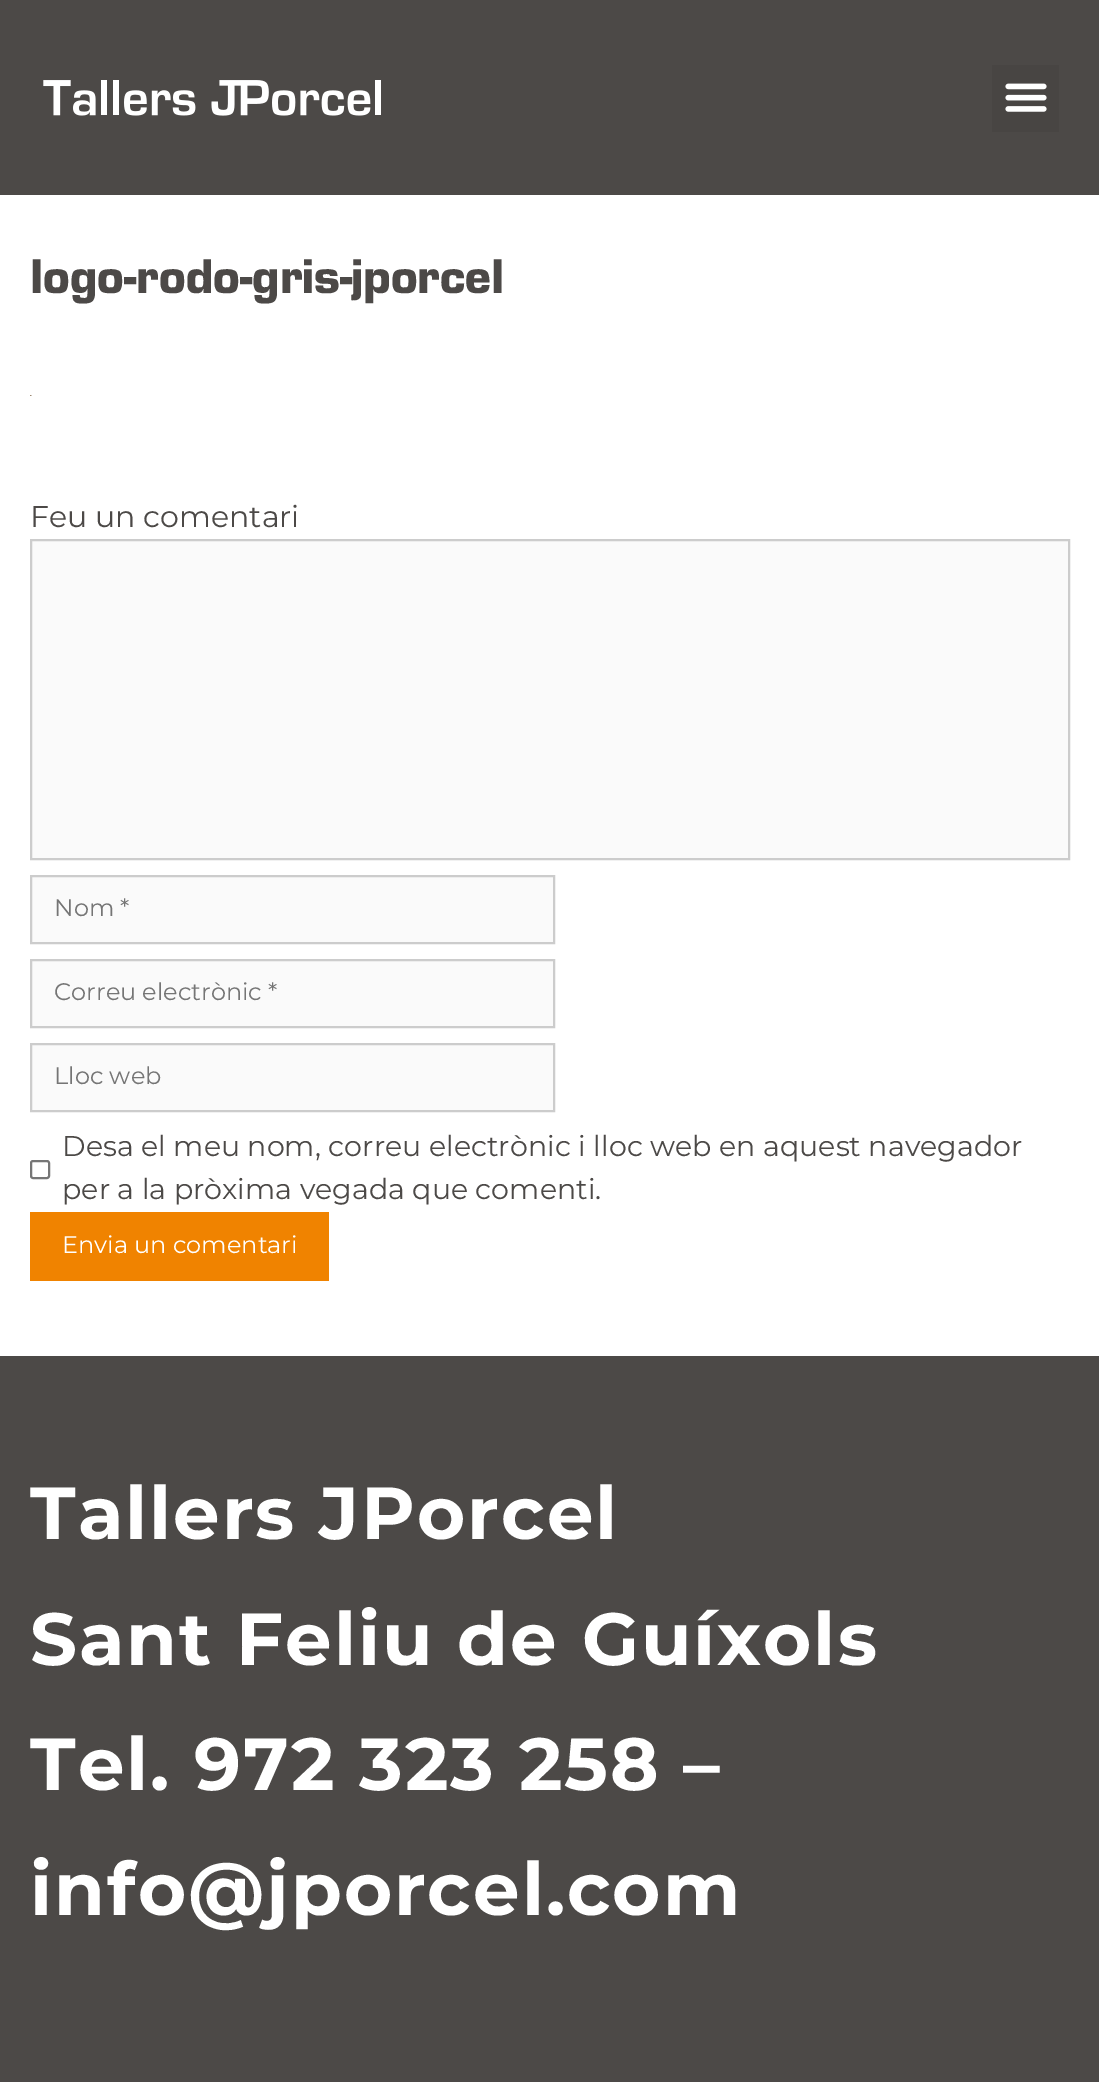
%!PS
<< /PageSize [1099 2082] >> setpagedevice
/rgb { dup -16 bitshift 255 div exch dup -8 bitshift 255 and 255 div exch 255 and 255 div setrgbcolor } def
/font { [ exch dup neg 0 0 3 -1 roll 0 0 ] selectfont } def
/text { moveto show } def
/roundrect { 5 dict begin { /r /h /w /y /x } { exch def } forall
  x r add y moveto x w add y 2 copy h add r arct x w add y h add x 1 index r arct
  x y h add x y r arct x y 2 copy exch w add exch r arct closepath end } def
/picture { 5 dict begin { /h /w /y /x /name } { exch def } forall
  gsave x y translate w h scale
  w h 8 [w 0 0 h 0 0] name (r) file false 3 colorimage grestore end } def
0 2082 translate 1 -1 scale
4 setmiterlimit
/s1 { /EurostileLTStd-Bold 45 font 16#4C4947 rgb } def
/s2 { /Montserrat-Regular 30 font 16#4C4947 rgb } def
/s3 { /Montserrat-Regular 24 font 16#757575 rgb } def
/s4 { /Montserrat-Regular 28.5 font 16#4C4947 rgb } def
/s5 { /Montserrat-Regular 24 font 16#FFFFFF rgb } def
16#FFFFFF rgb
0 0 1099 2082 rectfill
16#4C4947 rgb
0 0 1099 195 rectfill
(pic1.raw) 43 80 338 36 picture
16#484543 rgb
992 65 67 67 rectfill
(pic2.raw) 1005 83 42 29 picture
s1
(logo-rodo-gris-jporcel) 30 293 text
(pic3.raw) 30 395 2 1 picture
s2
(Feu un comentari) 30 527 text
16#FAFAFA rgb
31 540 moveto 1069 540 lineto 1069 859 lineto 31 859 lineto closepath gsave fill grestore
16#CCCCCC rgb
2 setlinewidth
stroke
16#FAFAFA rgb
31 876 moveto 554 876 lineto 554 943 lineto 31 943 lineto closepath gsave fill grestore
16#CCCCCC rgb
stroke
s3
(Nom *) 54 916 text
16#FAFAFA rgb
31 960 moveto 554 960 lineto 554 1027 lineto 31 1027 lineto closepath gsave fill grestore
16#CCCCCC rgb
stroke
s3
(Correu electrònic *) 54 1000 text
16#FAFAFA rgb
31 1044 moveto 554 1044 lineto 554 1111 lineto 31 1111 lineto closepath gsave fill grestore
16#CCCCCC rgb
stroke
s3
(Lloc web) 54 1084 text
16#767676 rgb
31 1161 18 17 2 roundrect stroke
s4
(Desa el meu nom, correu electrònic i lloc web en aquest navegador) 62 1156 text
(per a la pròxima vegada que comenti.) 62 1199 text
16#F08300 rgb
30 1212 299 69 rectfill
s5
(Envia un comentari) 62 1253 text
16#4C4947 rgb
0 1356 1099 726 rectfill
/Montserrat-Bold 73.75 font
16#FFFFFF rgb
30 1539 moveto 1.95 0 (Tallers JPorcel) ashow
30 1665 moveto 1.95 0 (Sant Feliu de Guíxols) ashow
30 1790 moveto 1.95 0 (Tel. 972 323 258 –) ashow
30 1915 moveto 1.95 0 (info@jporcel.com) ashow
showpage
